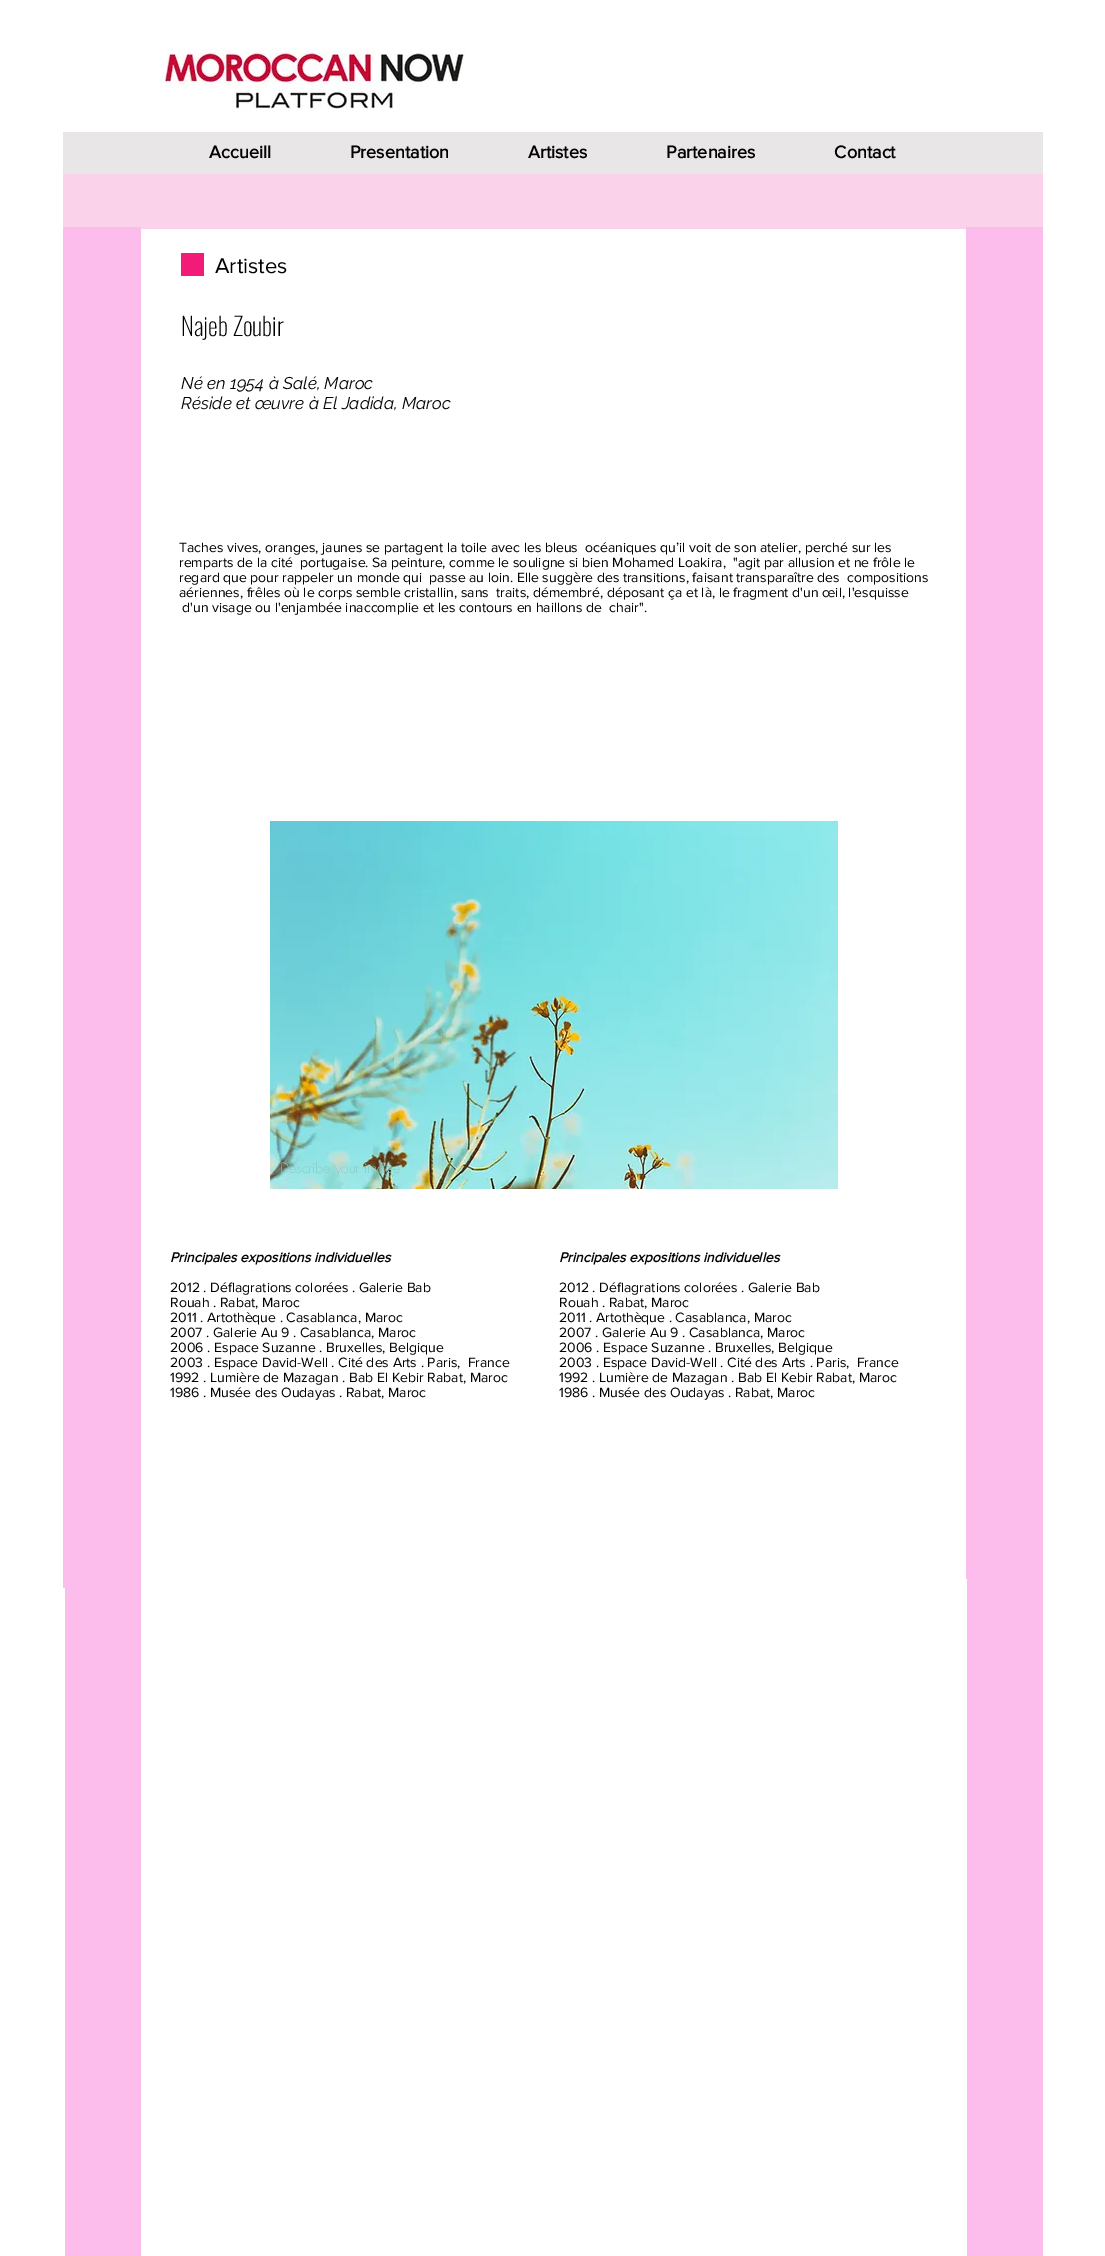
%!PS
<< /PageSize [1105 2256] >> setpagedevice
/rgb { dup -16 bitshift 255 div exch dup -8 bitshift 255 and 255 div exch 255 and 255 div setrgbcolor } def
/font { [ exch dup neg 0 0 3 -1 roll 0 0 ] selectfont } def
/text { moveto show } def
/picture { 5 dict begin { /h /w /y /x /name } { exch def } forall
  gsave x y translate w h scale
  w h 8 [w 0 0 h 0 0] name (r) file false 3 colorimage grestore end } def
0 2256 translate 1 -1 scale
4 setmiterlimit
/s1 { /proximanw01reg-Bold 18 font 16#000000 rgb } def
/s2 { /proximanw01reg-Regular 22 font 16#000000 rgb } def
/s3 { /Oswald-ExtraLight 25 font 16#000000 rgb } def
/s4 { /Raleway-Italic 17 font 16#000000 rgb } def
/s5 { /proximanw01reg-Regular 14 font 16#000000 rgb } def
/s6 { /futura-Light 14 font 16#8ECAC4 rgb } def
/s7 { /proximanw01reg-BoldItalic 14 font 16#000000 rgb } def
16#FFFFFF rgb
0 0 1105 2256 rectfill
(pic1.raw) 161 48 305 62 picture
16#E8E6E6 rgb
63 132 980 42 rectfill
s1
(Accueill                 Presentation                 Artistes                 Partenaires                 Contact) 209 158 text
16#FAD2EA rgb
63 174 980 55 rectfill
16#FCBDEC rgb
63 227 78 1361 rectfill
16#F21B78 rgb
181 253 23 23 rectfill
s2
(Artistes) 215 273 text
16#FCBDEC rgb
966 227 77 1352 rectfill
s3
(Najeb Zoubir) 181 336 text
s4
(Né en 1954 à Salé, Maroc) 181 389 text
(Réside et œuvre à El Jadida, Maroc) 181 409 text
s5
(Taches vives, oranges, jaunes se partagent la toile avec les bleus  océaniques qu’il voit de son atelier, perché sur les) 179 552 text
(remparts de la cité  portugaise. Sa peinture, comme le souligne si bien Mohamed Loakira,  "agit par allusion et ne frôle le) 179 567 text
(regard que pour rappeler un monde qui  passe au loin. Elle suggère des transitions, faisant transparaître des  compositions) 179 582 text
(aériennes, frêles où le corps semble cristallin, sans  traits, démembré, déposant ça et là, le fragment d'un œil, l'esquisse) 179 597 text
(d'un visage ou l'enjambée inaccomplie et les contours en haillons de  chair".) 182 612 text
(pic2.raw) 270 821 568 368 picture
s6
(Describe your image) 280 1173 text
s7
(Principales expositions individuelles) 170 1262 text
s5
(2012 . Déflagrations colorées . Galerie Bab) 170 1292 text
(Rouah . Rabat, Maroc) 170 1307 text
(2011 . Artothèque . Casablanca, Maroc) 170 1322 text
(2007 . Galerie Au 9 . Casablanca, Maroc) 170 1337 text
(2006 . Espace Suzanne . Bruxelles, Belgique) 170 1352 text
(2003 . Espace David-Well . Cité des Arts . Paris,  France) 170 1367 text
(1992 . Lumière de Mazagan . Bab El Kebir Rabat, Maroc) 170 1382 text
(1986 . Musée des Oudayas . Rabat, Maroc) 170 1397 text
s7
(Principales expositions individuelles) 559 1262 text
s5
(2012 . Déflagrations colorées . Galerie Bab) 559 1292 text
(Rouah . Rabat, Maroc) 559 1307 text
(2011 . Artothèque . Casablanca, Maroc) 559 1322 text
(2007 . Galerie Au 9 . Casablanca, Maroc) 559 1337 text
(2006 . Espace Suzanne . Bruxelles, Belgique) 559 1352 text
(2003 . Espace David-Well . Cité des Arts . Paris,  France) 559 1367 text
(1992 . Lumière de Mazagan . Bab El Kebir Rabat, Maroc) 559 1382 text
(1986 . Musée des Oudayas . Rabat, Maroc) 559 1397 text
16#FCBDEC rgb
65 1588 76 668 rectfill
967 1579 76 677 rectfill
showpage
